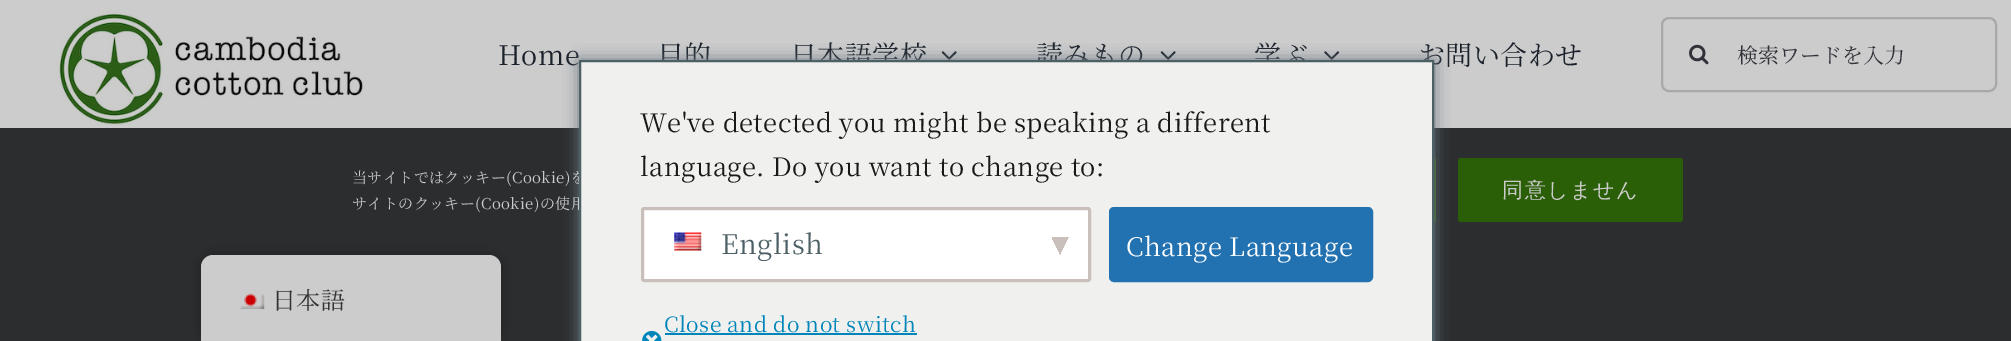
%!PS
<< /PageSize [2011 341] /PageUsesTransparency true >> setpagedevice
/rgb { dup -16 bitshift 255 div exch dup -8 bitshift 255 and 255 div exch 255 and 255 div setrgbcolor } def
/font { [ exch dup neg 0 0 3 -1 roll 0 0 ] selectfont } def
/text { moveto show } def
/alpha { dup .setfillconstantalpha .setstrokeconstantalpha } def
/roundrect { 5 dict begin { /r /h /w /y /x } { exch def } forall
  x r add y moveto x w add y 2 copy h add r arct x w add y h add x 1 index r arct
  x y h add x y r arct x y 2 copy exch w add exch r arct closepath end } def
/shadow { 12 dict begin { /a /b /q /h /w /y /x } { exch def } forall gsave /was 0 def
  9 -2 -9 { dup b mul 4 div /e exch def 1 sub .425 mul 2.718 exch exp 1 add a .99 .min exch div /now exch def
    1 1 now sub 1 was sub div sub alpha /was now def
    w h .min e 2 mul add 0 gt { x e sub y e sub w e 2 mul add h e 2 mul add
      q e add b .6 mul add w h .min 2 div e add .min 0 .max roundrect fill } if } for grestore end } def
/picture { 5 dict begin { /h /w /y /x /name } { exch def } forall
  gsave x y translate w h scale
  w h 8 [w 0 0 h 0 0] name (r) file false 3 colorimage grestore end } def
0 .pushpdf14devicefilter
0 341 translate 1 -1 scale
4 setmiterlimit
/s1 { /NotoSerifJP-Regular 21 font 16#31323A rgb } def
16#CCCCCC rgb
0 0 2011 341 rectfill
(pic1.raw) 57 9 306 117 picture
/NotoSerifJP-Regular 27 font
16#1A212A rgb
498 65 moveto 0.4 0 (Home) ashow
657 65 moveto 0.4 0 (目的) ashow
790 65 moveto 0.4 0 (日本語学校) ashow
(pic2.raw) 941 51 16 9 picture
1036 65 moveto 0.4 0 (読みもの) ashow
(pic2.raw) 1160 51 16 9 picture
1254 65 moveto 0.4 0 (学ぶ) ashow
(pic3.raw) 1324 51 16 9 picture
1418 65 moveto 0.4 0 (お問い合わせ) ashow
16#A8A8A8 rgb
2 setlinewidth
1662 18 334 73 7 roundrect stroke
(pic4.raw) 1689 44 20 21 picture
s1
(検索ワードを入力) 1737 63 text
16#2B2D2E rgb
0 128 2011 213 rectfill
16#2A5E07 rgb
1235 158 201 64 3 roundrect fill
16#6C7781 rgb
579 60 855 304 0 7.5 1 shadow
/NotoSerifJP-Regular 15 font
16#CCCCCC rgb
352 183 moveto 0.4 0 (当サイトではクッキー\(Cookie\)を) ashow
352 209 moveto 0.4 0 (サイトのクッキー\(Cookie\)の使用) ashow
16#F0F0EE rgb
580 61 moveto 1433 61 lineto 1433 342 lineto 580 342 lineto closepath gsave fill grestore
16#4C6066 rgb
stroke
/NotoSerifJP-Regular 25.5 font
16#191919 rgb
640 132 moveto 0.4 0 (We've detected you might be speaking a different) ashow
640 176 moveto 0.4 0 (language. Do you want to change to:) ashow
16#FFFFFF rgb
641 207 450 75 3 roundrect fill
gsave 1061 237 moveto 1069 237 lineto 1069 252 lineto 1061 252 lineto closepath clip newpath
<< /ShadingType 2 /ColorSpace /DeviceRGB /Coords [1057 242 1072 250] /Extend [true true] /Function << /FunctionType 3 /Domain [0 1] /Functions [<< /FunctionType 2 /Domain [0 1] /C0 [0.788 0.753 0.733] /C1 [0.788 0.753 0.733] /N 1 >> << /FunctionType 2 /Domain [0 1] /C0 [1 1 1] /C1 [1 1 1] /N 1 >>] /Bounds [0.5] /Encode [0 1 0 1] >> >> shfill grestore
gsave 1052 237 moveto 1061 237 lineto 1061 255 lineto 1052 255 lineto closepath clip newpath
<< /ShadingType 2 /ColorSpace /DeviceRGB /Coords [1048 250 1063 242] /Extend [true true] /Function << /FunctionType 3 /Domain [0 1] /Functions [<< /FunctionType 2 /Domain [0 1] /C0 [1 1 1] /C1 [1 1 1] /N 1 >> << /FunctionType 2 /Domain [0 1] /C0 [0.788 0.753 0.733] /C1 [0.788 0.753 0.733] /N 1 >>] /Bounds [0.5] /Encode [0 1 0 1] >> >> shfill grestore
16#C9C0BB rgb
3 setlinewidth
642.5 208.5 447 72 1.5 roundrect stroke
(pic5.raw) 674 232 28 19 picture
/NotoSerifJP-Regular 27 font
16#4C6066 rgb
721 254 moveto 0.4 0 (English) ashow
16#2271B1 rgb
1110 208 262 73 4 roundrect gsave fill grestore
2 setlinewidth
stroke
/NotoSerifJP-Regular 25.5 font
16#FFFFFF rgb
1126 256 moveto 0.4 0 (Change Language) ashow
/NotoSerifJP-Regular 21 font
16#0085BA rgb
664 332 moveto 0.4 0 (Close and do not switch) ashow
665 333 252 2 rectfill
(pic6.raw) 642 330 20 11 picture
16#2A5E07 rgb
1458 158 225 64 3 roundrect fill
/WenQuanYiZenHei-Medium 21 font
16#CCCCCC rgb
1502 197 moveto 1.5 0 (同意しません) ashow
16#000000 rgb
201 255 300 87 12 6 0.25 shadow
16#CCCCCC rgb
213 255 moveto 489 255 lineto 495.5 255 501 260.5 501 267 curveto 501 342 lineto 201 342 lineto 201 267 lineto 201 260.5 206.5 255 213 255 curveto closepath fill
(pic7.raw) 240 293 25 16 picture
/NotoSerifJP-Regular 24 font
16#333333 rgb
272 309 moveto 0.4 0 (日本語) ashow
.poppdf14devicefilter showpage
